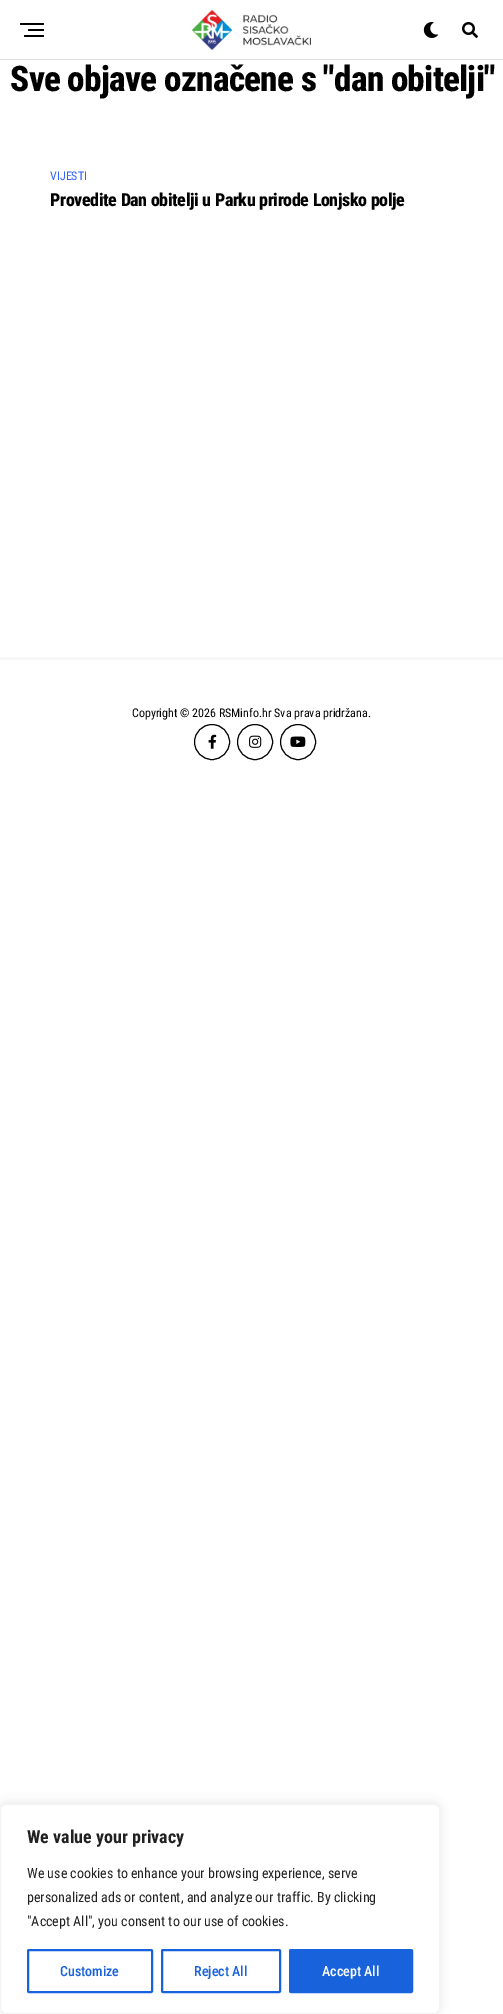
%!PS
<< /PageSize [503 2014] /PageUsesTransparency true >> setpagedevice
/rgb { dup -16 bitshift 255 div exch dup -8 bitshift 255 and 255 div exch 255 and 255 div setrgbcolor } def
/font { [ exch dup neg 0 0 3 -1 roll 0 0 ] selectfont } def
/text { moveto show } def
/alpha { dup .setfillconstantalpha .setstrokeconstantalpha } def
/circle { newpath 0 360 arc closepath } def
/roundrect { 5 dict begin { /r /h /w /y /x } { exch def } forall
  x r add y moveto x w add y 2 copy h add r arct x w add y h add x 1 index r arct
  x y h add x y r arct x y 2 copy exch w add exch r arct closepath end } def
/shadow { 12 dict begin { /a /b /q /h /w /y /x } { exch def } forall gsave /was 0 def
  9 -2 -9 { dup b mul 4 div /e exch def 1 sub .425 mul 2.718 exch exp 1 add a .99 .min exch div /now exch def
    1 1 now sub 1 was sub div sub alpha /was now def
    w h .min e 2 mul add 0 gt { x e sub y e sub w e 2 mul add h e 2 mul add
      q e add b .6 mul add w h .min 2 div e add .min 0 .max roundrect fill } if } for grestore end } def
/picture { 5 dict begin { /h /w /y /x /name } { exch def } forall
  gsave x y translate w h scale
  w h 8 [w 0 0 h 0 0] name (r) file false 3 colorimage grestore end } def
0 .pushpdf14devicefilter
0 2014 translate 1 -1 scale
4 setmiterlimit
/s1 { /RobotoCondensed-Regular 12 font 16#3061FF rgb } def
/s2 { /RobotoCondensed-Regular 12 font 16#000000 rgb } def
/s3 { /RobotoCondensed-Bold 18 font 16#212121 rgb } def
/s4 { /RobotoCondensed-Regular 14 font 16#212121 rgb } def
/s5 { /RobotoCondensed-Medium 14 font 16#1863DC rgb } def
/s6 { /RobotoCondensed-Medium 14 font 16#FFFFFF rgb } def
16#FFFFFF rgb
0 0 503 2014 rectfill
16#DDDDDD rgb
0 59 503 1 rectfill
16#000000 rgb
20 23 24 2 1 roundrect fill
28 29 16 2 1 roundrect fill
24 35 20 2 1 roundrect fill
(pic1.raw) 192 10 119 40 picture
(pic2.raw) 423 22 16 16 picture
(pic3.raw) 462 22 16 16 picture
/RobotoCondensed-ExtraBold 35.25 font
10 91 moveto -0.7 0 (Sve objave označene s "dan obitelji") ashow
s1
(VIJESTI) 50 180 text
/RobotoCondensed-ExtraBold 18 font
16#000000 rgb
50 206 moveto -0.35 0 (Provedite Dan obitelji u Parku prirode Lonjsko polje) ashow
16#F7F7F7 rgb
0 657 503 3 rectfill
s2
(Copyright © 2026 RSMinfo.hr Sva prava pridržana.) 132 717 text
212 742 17.5 circle stroke
(pic4.raw) 208 734 9 15 picture
255 742 17.5 circle stroke
(pic5.raw) 249 735 13 13 picture
298 742 17.5 circle stroke
(pic6.raw) 290 736 16 11 picture
16#ACABAB rgb
0 1803 440 210 6 5 0.3 shadow
16#FFFFFF rgb
0.5 1804.5 439 209 5.5 roundrect gsave fill grestore
16#F4F4F4 rgb
stroke
s3
(We value your privacy) 27 1843 text
s4
(We use cookies to enhance your browsing experience, serve) 27 1878 text
(personalized ads or content, and analyze our traffic. By clicking) 27 1902 text
("Accept All", you consent to our use of cookies.) 27 1926 text
16#1863DC rgb
2 setlinewidth
28 1950 124 42 1 roundrect stroke
s5
(Customize) 60 1976 text
162 1950 118 42 1 roundrect stroke
(Reject All) 194 1976 text
290 1950 122 42 1 roundrect gsave fill grestore
stroke
s6
(Accept All) 322 1976 text
.poppdf14devicefilter showpage
